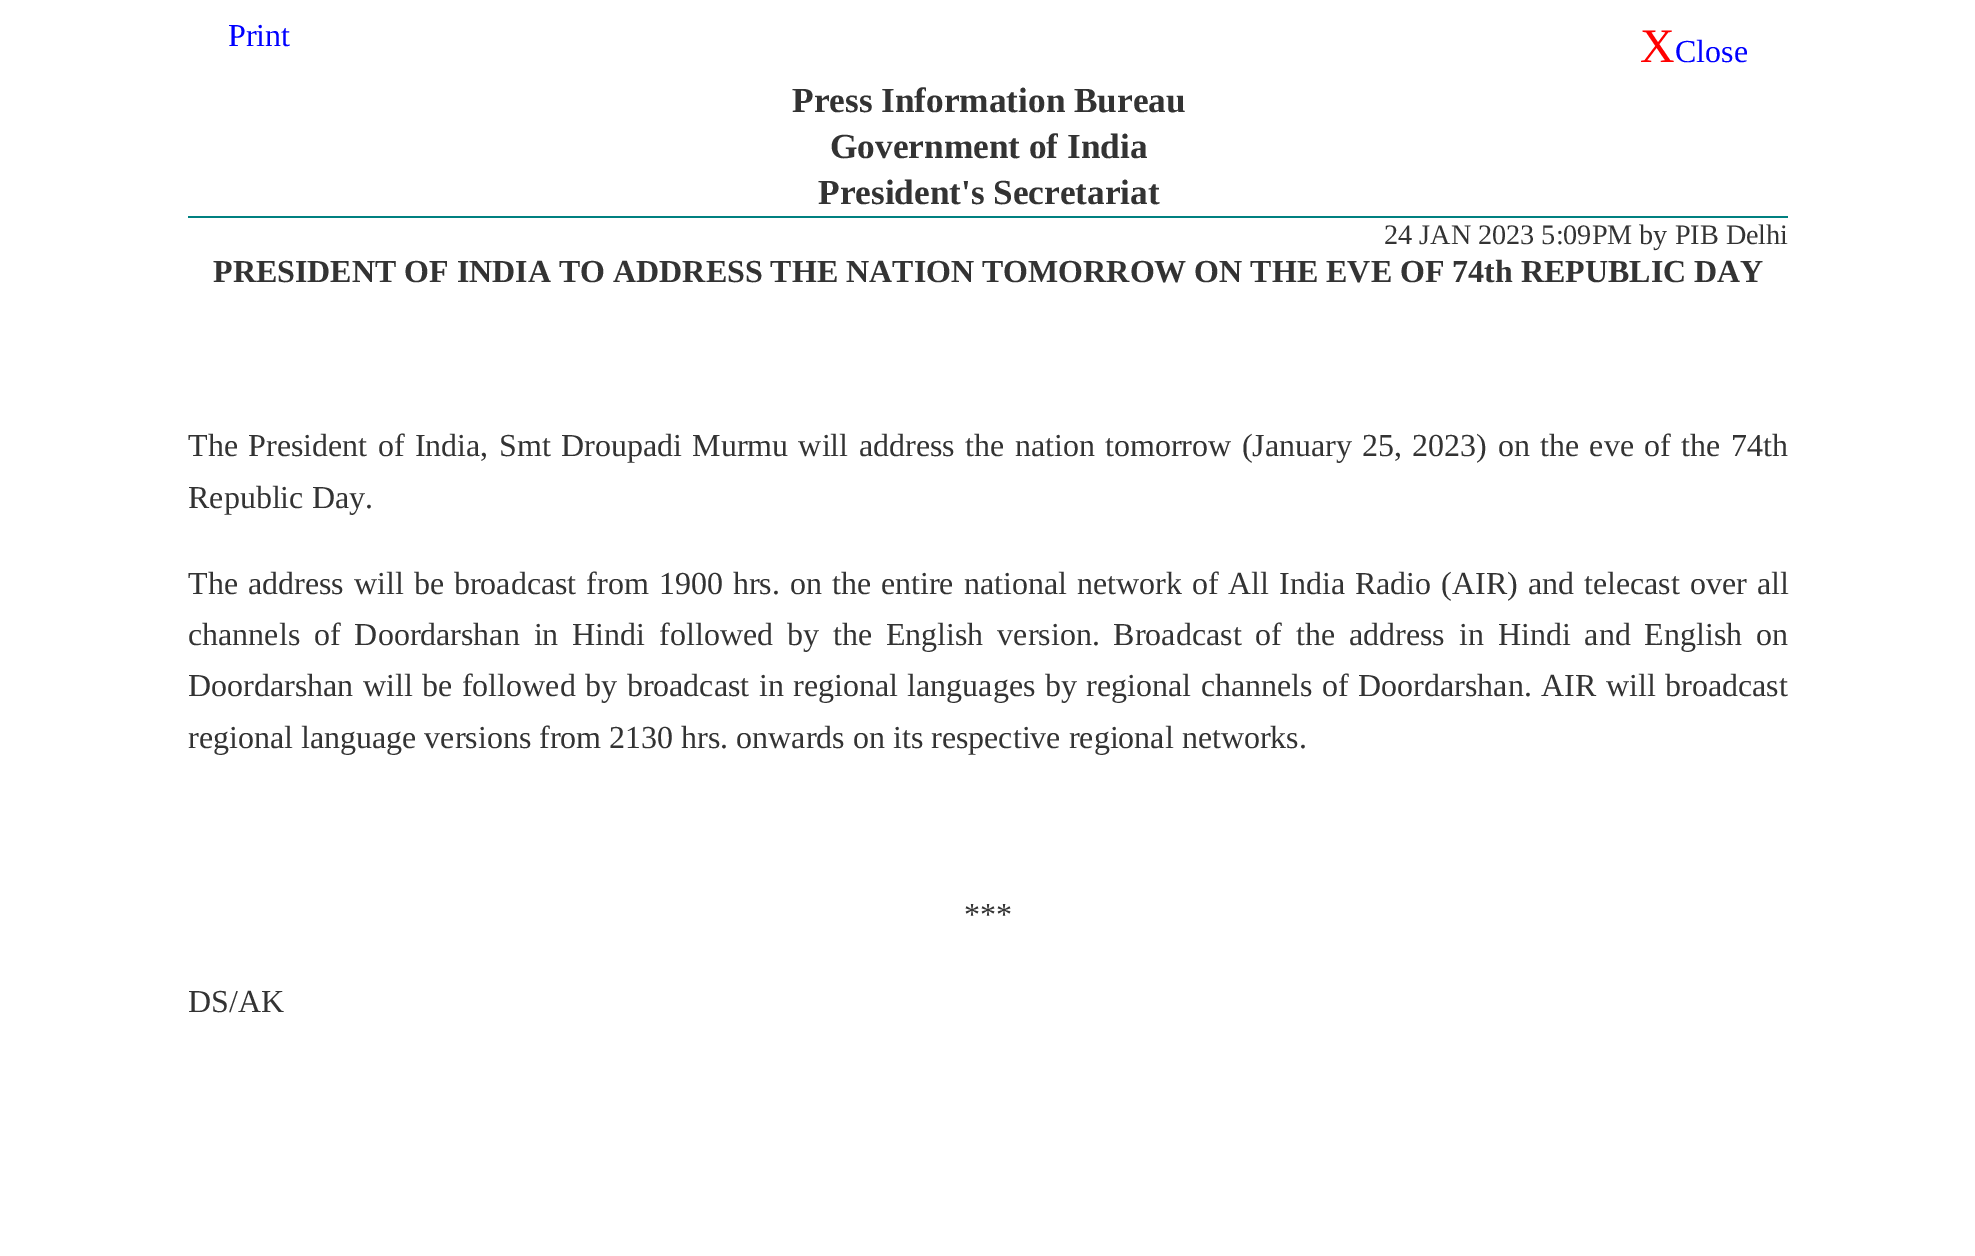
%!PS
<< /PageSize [1975 1256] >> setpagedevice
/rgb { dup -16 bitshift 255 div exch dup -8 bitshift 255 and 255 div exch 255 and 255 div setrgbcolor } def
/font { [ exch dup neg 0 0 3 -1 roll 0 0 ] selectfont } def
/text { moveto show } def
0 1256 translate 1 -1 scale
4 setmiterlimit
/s1 { /LiberationSerif-Regular 32 font 16#0000FF rgb } def
/s2 { /LiberationSerif-Regular 48 font 16#FF0000 rgb } def
/s3 { /LiberationSerif-Bold 35.25 font 16#333333 rgb } def
/s4 { /LiberationSerif-Regular 28.2 font 16#333333 rgb } def
/s5 { /LiberationSerif-Bold 32 font 16#333333 rgb } def
/s6 { /LiberationSerif-Regular 32 font 16#333333 rgb } def
16#FFFFFF rgb
0 0 1975 1256 rectfill
s1
(Print) 228 46 text
s2
(X) 1640 62 text
s1
(Close) 1675 62 text
16#008080 rgb
188 216 1600 2 rectfill
s3
(Press Information Bureau) 792 112 text
(Government of India) 830 158 text
(President's Secretariat) 818 204 text
s4
(24 JAN 2023 5:09PM by PIB Delhi) 1384 244 text
s5
(PRESIDENT OF INDIA TO ADDRESS THE NATION TOMORROW ON THE EVE OF 74th REPUBLIC DAY) 213 282 text
/LiberationSerif-Regular 32 font
188 456 moveto 2.4 0 32 (The President of India, Smt Droupadi Murmu will address the nation tomorrow \(January 25, 2023\) on the eve of the 74th) widthshow
(Republic Day.) 188 508 text
188 594 moveto 2 0 32 (The address will be broadcast from 1900 hrs. on the entire national network of All India Radio \(AIR\) and telecast over all) widthshow
188 645 moveto 5.9 0 32 (channels of Doordarshan in Hindi followed by the English version. Broadcast of the address in Hindi and English on) widthshow
188 696 moveto 1.5 0 32 (Doordarshan will be followed by broadcast in regional languages by regional channels of Doordarshan. AIR will broadcast) widthshow
(regional language versions from 2130 hrs. onwards on its respective regional networks.) 188 748 text
(***) 964 925 text
(DS/AK) 188 1012 text
showpage
